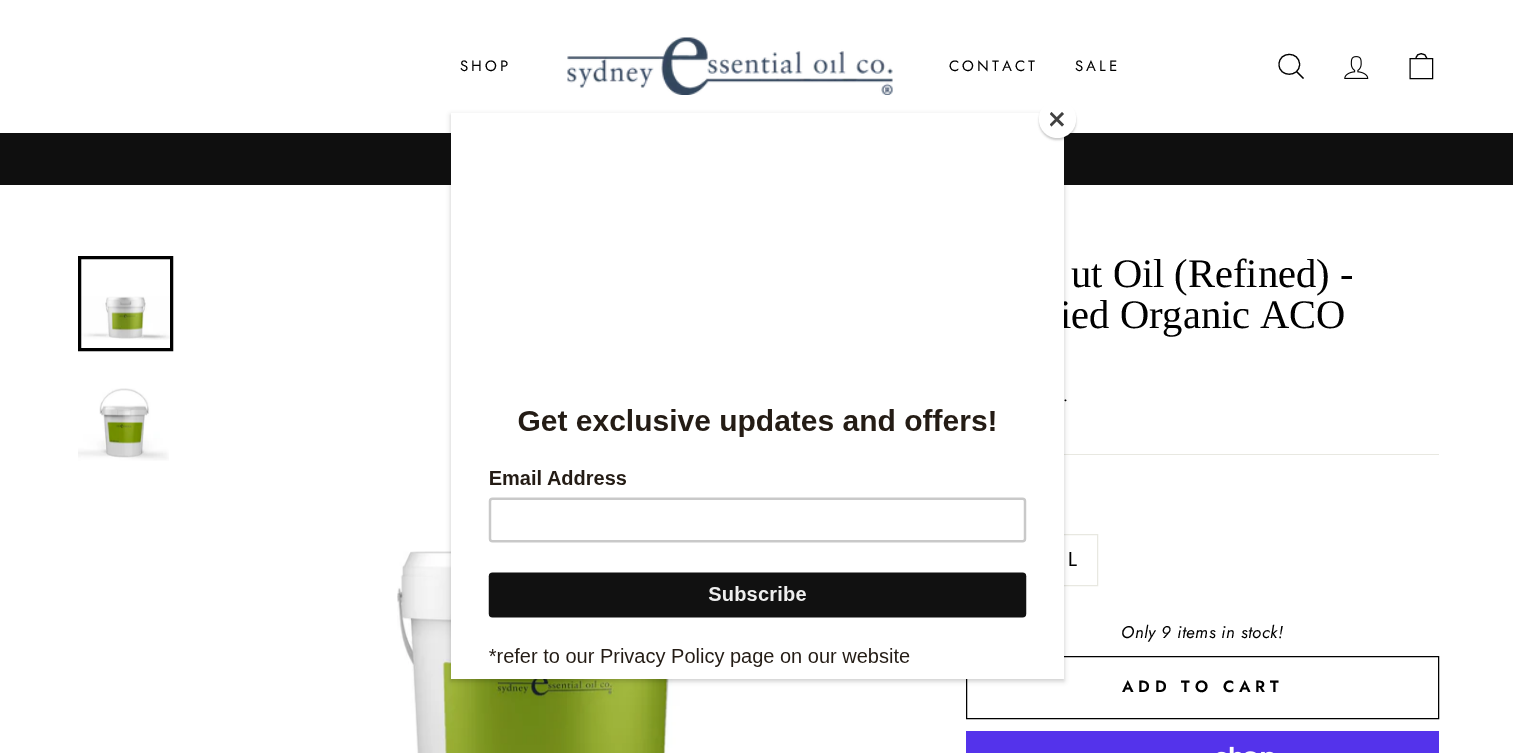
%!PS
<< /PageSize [1513 753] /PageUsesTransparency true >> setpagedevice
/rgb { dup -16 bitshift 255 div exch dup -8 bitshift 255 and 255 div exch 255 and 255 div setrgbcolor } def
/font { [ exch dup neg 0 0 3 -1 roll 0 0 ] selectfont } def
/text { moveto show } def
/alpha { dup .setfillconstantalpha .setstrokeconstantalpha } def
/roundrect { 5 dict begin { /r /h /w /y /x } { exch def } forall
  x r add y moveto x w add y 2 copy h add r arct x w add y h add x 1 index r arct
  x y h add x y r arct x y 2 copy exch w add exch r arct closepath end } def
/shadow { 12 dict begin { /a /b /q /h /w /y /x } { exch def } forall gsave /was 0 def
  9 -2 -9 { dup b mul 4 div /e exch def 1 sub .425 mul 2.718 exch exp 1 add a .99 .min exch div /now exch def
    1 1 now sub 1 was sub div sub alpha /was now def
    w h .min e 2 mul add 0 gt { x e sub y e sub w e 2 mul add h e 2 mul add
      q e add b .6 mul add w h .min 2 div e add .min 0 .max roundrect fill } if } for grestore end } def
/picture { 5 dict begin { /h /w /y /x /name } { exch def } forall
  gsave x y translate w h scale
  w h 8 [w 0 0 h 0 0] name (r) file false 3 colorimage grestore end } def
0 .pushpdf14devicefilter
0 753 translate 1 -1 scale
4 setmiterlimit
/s1 { /LiberationSerif-Regular 40.5 font 16#000000 rgb } def
16#FFFFFF rgb
0 0 1513 753 rectfill
16#0F0F0F rgb
0 133 1513 52 rectfill
16#000000 rgb
0 0 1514 133 0 0.5 0.2 shadow
16#FFFFFF rgb
0 0 1513 133 rectfill
/Jost-Regular 15 font
16#000000 rgb
460 71 moveto 3 0 (SHOP) ashow
(pic1.raw) 567 37 326 58 picture
949 71 moveto 3 0 (CONTACT) ashow
1075 71 moveto 3 0 (SALE) ashow
1.1 setlinewidth
1299.5 64.5 moveto 1299.5 77.5 1279 77.5 1279 64.5 curveto 1279 51 1299.5 51 1299.5 64.5 curveto closepath 1303.5 78.5 moveto 1296.5 71.5 lineto stroke
(pic2.raw) 1344 56 25 23 picture
1410 58.5 moveto 1432.5 58.5 lineto 1432.5 78.5 lineto 1410 78.5 lineto closepath 1416 58.5 moveto 1416 52 1426.5 52 1426.5 58.5 curveto stroke
(pic3.raw) 81 296 89 44 picture
3 setlinewidth
79.5 257.5 92 92 rectstroke
(pic4.raw) 78 388 91 73 picture
(pic5.raw) 397 551 289 202 picture
s1
(ut Oil \(Refined\) -) 1071 287 text
(ied Organic ACO) 1060 328 text
/Jost-Regular 17 font
1063 401 moveto 0.5 0 (.) ashow
16#E8E8E1 rgb
1064 454 375 1 rectfill
1 setlinewidth
1036.5 534.5 61 51 rectstroke
/Jost-Regular 20 font
16#000000 rgb
1068 566 moveto 0.5 0 (L) ashow
/Jost-Italic 17 font
1121 638 moveto 0.5 0 (Only 9 items in stock!) ashow
966.5 656.5 472 62 rectstroke
/Jost-SemiBold 16.25 font
1122 692 moveto 4.9 0 (ADD TO CART) ashow
16#5433EB rgb
966 731 473 22 rectfill
(pic6.raw) 1217 746 57 7 picture
gsave
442 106 moveto 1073 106 lineto 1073 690 lineto 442 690 lineto closepath 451 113 moveto 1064 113 lineto 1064 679 lineto 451 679 lineto closepath eoclip newpath
16#000000 rgb
451 115 613 566 0 2.5 0.2 shadow
grestore
(pic7.raw) 451 115 613 564 picture
16#000000 rgb
1039 103 37 37 18.5 1 0.2 shadow
16#FFFFFF rgb
1039 100 37 38 18.5 roundrect fill
16#414141 rgb
1062 112 moveto 1064 114 lineto 1051.5 126.5 lineto 1050 124.5 lineto closepath fill
1050 114 moveto 1051.5 112 lineto 1064 124.5 lineto 1062 126.5 lineto closepath fill
.poppdf14devicefilter showpage
